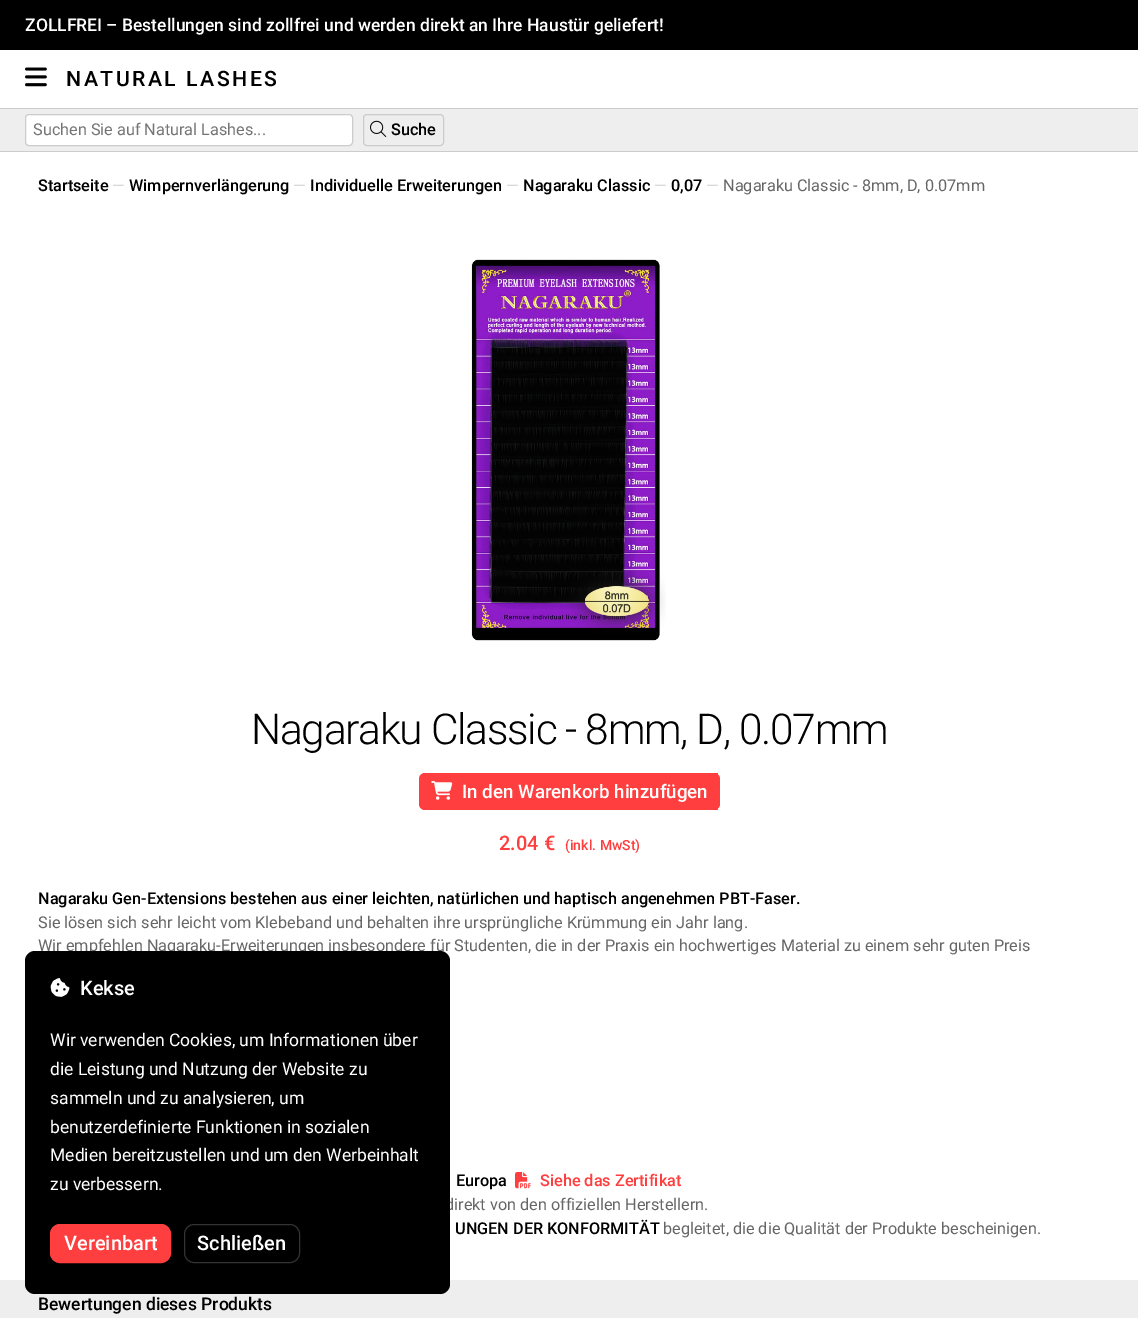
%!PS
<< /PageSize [1138 1318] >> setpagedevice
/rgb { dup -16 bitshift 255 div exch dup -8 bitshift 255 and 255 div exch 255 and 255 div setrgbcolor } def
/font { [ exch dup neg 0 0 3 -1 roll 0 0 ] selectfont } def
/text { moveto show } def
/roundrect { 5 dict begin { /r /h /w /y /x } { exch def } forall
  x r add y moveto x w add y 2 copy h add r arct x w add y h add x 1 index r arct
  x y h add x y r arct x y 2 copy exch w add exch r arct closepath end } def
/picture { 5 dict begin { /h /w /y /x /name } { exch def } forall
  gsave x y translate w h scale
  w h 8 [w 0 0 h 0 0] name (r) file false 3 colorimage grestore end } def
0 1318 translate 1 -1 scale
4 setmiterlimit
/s1 { /Roboto-Medium 17.5 font 16#FFFFFF rgb } def
/s2 { /Roboto-Regular 16.25 font 16#757575 rgb } def
/s3 { /Roboto-Medium 16.25 font 16#000000 rgb } def
/s4 { /Roboto-Regular 16.25 font 16#CCCCCC rgb } def
/s5 { /Roboto-Regular 16.25 font 16#666666 rgb } def
/s6 { /Roboto-Medium 18.75 font 16#FFFFFF rgb } def
/s7 { /Roboto-Medium 20 font 16#FF3F3F rgb } def
/s8 { /Roboto-Medium 14 font 16#FF3F3F rgb } def
/s9 { /Roboto-Medium 16.25 font 16#FF3F3F rgb } def
/s10 { /Roboto-Medium 20 font 16#FFFFFF rgb } def
/s11 { /Roboto-Regular 17.5 font 16#FFFFFF rgb } def
/s12 { /Roboto-Medium 17.5 font 16#000000 rgb } def
16#FFFFFF rgb
0 0 1138 1318 rectfill
16#000000 rgb
0 0 1138 50 rectfill
s1
(ZOLLFREI – Bestellungen sind zollfrei und werden direkt an Ihre Haustür geliefert!) 25 31 text
(pic1.raw) 25 67 22 20 picture
/Roboto-Medium 21.25 font
16#000000 rgb
66 86 moveto 2.5 0 (NATURAL LASHES) ashow
16#EEEEEE rgb
0 109 1138 42 rectfill
16#CCCCCC rgb
0 108 1138 1 rectfill
16#FFFFFF rgb
25.5 114.5 327 31 3.5 roundrect gsave fill grestore
16#CCCCCC rgb
stroke
s2
(Suchen Sie auf Natural Lashes...) 33 135 text
16#CCCCCC rgb
363.5 114.5 80 31 3.5 roundrect stroke
(pic2.raw) 370 120 17 17 picture
s3
(Suche) 391 135 text
16#CCCCCC rgb
0 151 1138 1 rectfill
s3
(Startseite) 38 191 text
s4
(—) 112 191 text
s3
(Wimpernverlängerung) 129 191 text
s4
(—) 293 191 text
s3
(Individuelle Erweiterungen) 310 191 text
s4
(—) 506 191 text
s3
(Nagaraku Classic) 523 191 text
s4
(—) 654 191 text
s3
(0,07) 671 191 text
s4
(—) 706 191 text
s5
(Nagaraku Classic - 8mm, D, 0.07mm) 723 191 text
(pic3.raw) 471 259 195 382 picture
/Roboto-Light 42.5 font
16#000000 rgb
251 744 moveto -1.25 0 (Nagaraku Classic - 8mm, D, 0.07mm) ashow
16#FF3F3F rgb
419 773 301 37 6 roundrect fill
423 773 295 1 rectfill
423 809 295 1 rectfill
(pic4.raw) 431 781 22 19 picture
s6
(In den Warenkorb hinzufügen) 462 798 text
s7
(2.04 €) 499 850 text
s8
(\(inkl. MwSt\)) 565 850 text
s3
(Nagaraku Gen-Extensions bestehen aus einer leichten, natürlichen und haptisch angenehmen PBT-Faser.) 38 904 text
s5
(Sie lösen sich sehr leicht vom Klebeband und behalten ihre ursprüngliche Krümmung ein Jahr lang.) 38 928 text
(Wir empfehlen Nagaraku-Erweiterungen insbesondere für Studenten, die in der Praxis ein hochwertiges Material zu einem sehr guten Preis) 38 951 text
s3
(Europa) 456 1186 text
(pic5.raw) 515 1172 16 17 picture
s9
(Siehe das Zertifikat) 540 1186 text
s5
(direkt von den offiziellen Herstellern.) 445 1210 text
s3
(UNGEN DER KONFORMITÄT) 455 1234 text
s5
(begleitet, die die Qualität der Produkte bescheinigen.) 663 1234 text
16#EEEEEE rgb
0 1280 1138 38 rectfill
16#000000 rgb
25 951 425 343 10 roundrect fill
(pic6.raw) 50 978 20 19 picture
s10
(Kekse) 80 995 text
s11
(Wir verwenden Cookies, um Informationen über) 50 1046 text
(die Leistung und Nutzung der Website zu) 50 1075 text
(sammeln und zu analysieren, um) 50 1104 text
(benutzerdefinierte Funktionen in sozialen) 50 1133 text
(Medien bereitzustellen und um den Werbeinhalt) 50 1161 text
(zu verbessern.) 50 1190 text
16#FF3F3F rgb
50.5 1224.5 120 38 9.5 roundrect gsave fill grestore
stroke
s10
(Vereinbart) 64 1250 text
16#333333 rgb
184.5 1224.5 115 38 9.5 roundrect stroke
s10
(Schließen) 197 1250 text
s12
(Bewertungen dieses Produkts) 38 1310 text
showpage
